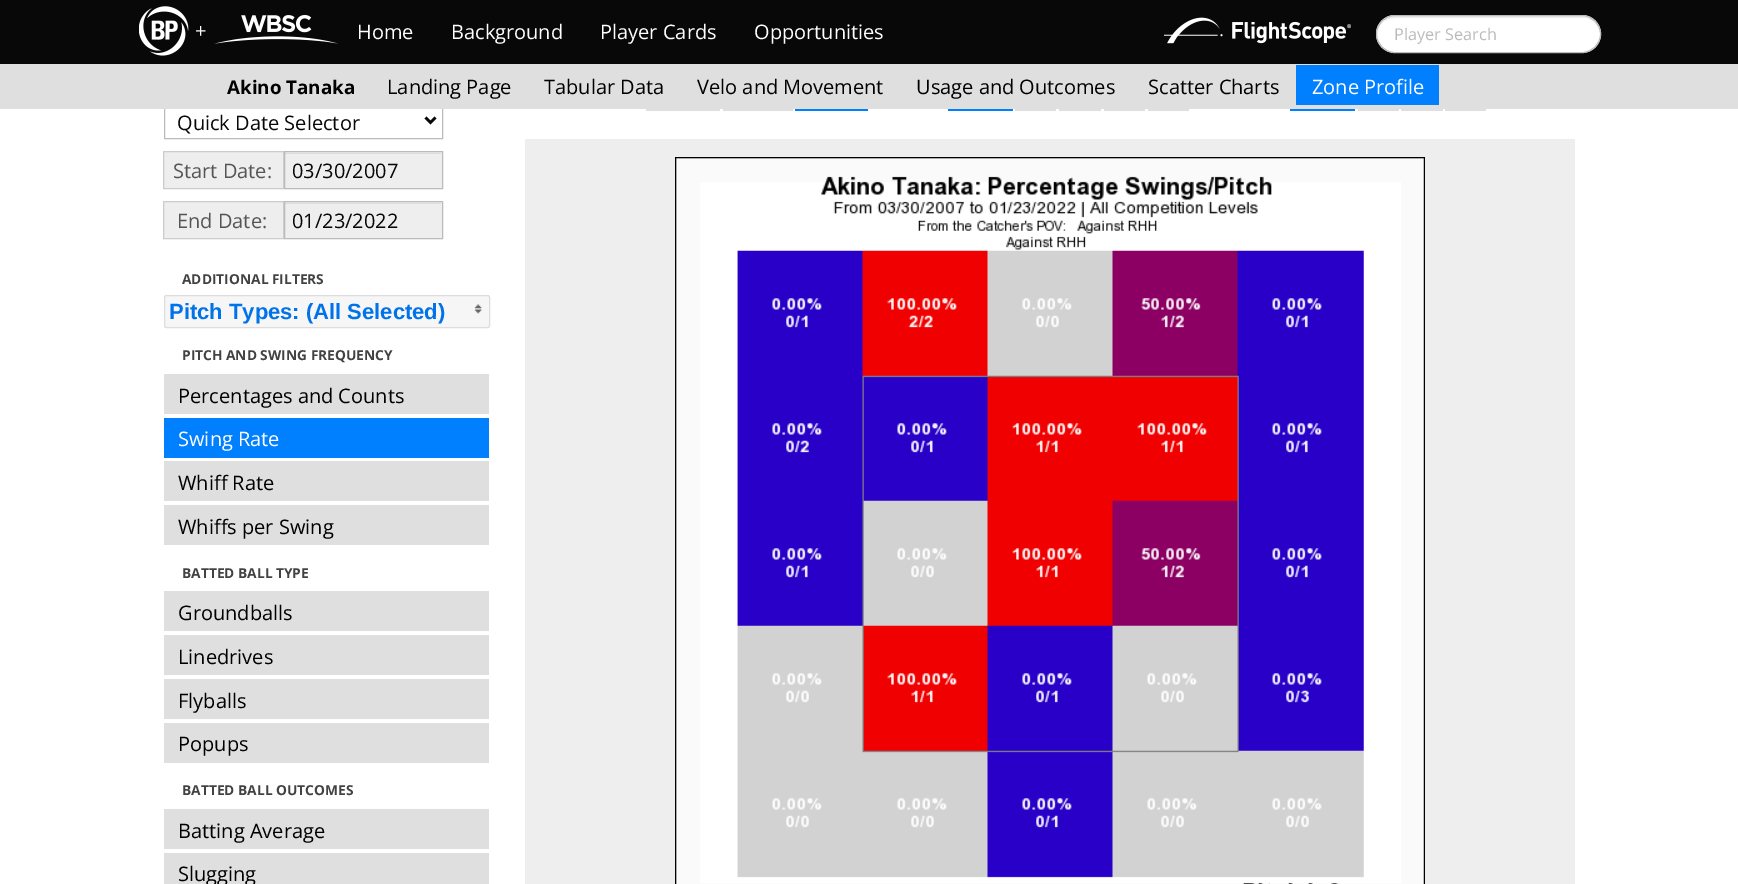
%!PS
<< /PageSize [1738 884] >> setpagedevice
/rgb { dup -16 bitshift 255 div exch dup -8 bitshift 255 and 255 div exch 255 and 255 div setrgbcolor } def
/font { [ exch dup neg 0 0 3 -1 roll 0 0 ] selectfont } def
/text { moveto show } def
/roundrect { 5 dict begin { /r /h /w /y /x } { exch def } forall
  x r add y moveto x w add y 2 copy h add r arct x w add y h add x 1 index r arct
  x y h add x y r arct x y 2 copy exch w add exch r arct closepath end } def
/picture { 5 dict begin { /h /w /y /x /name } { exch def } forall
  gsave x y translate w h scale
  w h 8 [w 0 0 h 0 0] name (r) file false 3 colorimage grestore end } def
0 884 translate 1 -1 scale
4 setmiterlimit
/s1 { /OpenSans-Regular 20 font 16#FFFFFF rgb } def
/s2 { /OpenSans-Regular 16.25 font 16#BBBBBB rgb } def
/s3 { /OpenSans-Bold 18.75 font 16#000000 rgb } def
/s4 { /OpenSans-Regular 20 font 16#000000 rgb } def
/s5 { /OpenSans-Regular 20 font 16#080808 rgb } def
/s6 { /OpenSans-Regular 20 font 16#555555 rgb } def
/s7 { /OpenSans-Bold 13.75 font 16#424242 rgb } def
/s8 { /LiberationSans-Bold 22 font 16#0073EA rgb } def
16#FFFFFF rgb
0 0 1738 884 rectfill
16#080808 rgb
0 0 1738 64 rectfill
(pic1.raw) 139 6 50 50 picture
s1
(+) 195 38 text
(pic2.raw) 214 15 124 29 picture
(Home) 357 39 text
(Background) 451 39 text
(Player Cards) 600 39 text
(Opportunities) 754 39 text
(pic3.raw) 1164 17 187 27 picture
1376 15 225 38 19 roundrect fill
16#ECECEC rgb
1395 18 moveto 1586 18 lineto 1595 20 1600 27 1600 35 curveto 1600 34 lineto 1600 24 1592 16 1582 16 curveto 1396 16 lineto 1387 16 1380 22 1378 30 curveto 1380 23 1386 18 1395 18 curveto closepath fill
16#BBBBBB rgb
1376.5 15.5 224 37 18.5 roundrect stroke
s2
(Player Search) 1394 40 text
164.5 101.5 278 37 rectstroke
16#DFDFDF rgb
0 64 1738 45 rectfill
s3
(Akino Tanaka) 227 94 text
s4
(Landing Page) 387 94 text
(Tabular Data) 544 94 text
(Velo and Movement) 697 94 text
(Usage and Outcomes) 916 94 text
(Scatter Charts) 1148 94 text
16#007FFF rgb
1296 65 143 40 rectfill
s1
(Zone Profile) 1312 94 text
16#080808 rgb
2.5 setlinewidth
425.5 117.5 moveto 430.5 122.5 lineto 435.5 117.5 lineto stroke
(Quick Date Selector) 177 130 text
16#EEEEEE rgb
163.5 151.5 moveto 283.5 151.5 lineto 283.5 188.5 lineto 163.5 188.5 lineto closepath gsave fill grestore
16#CCCCCC rgb
1 setlinewidth
stroke
s6
(Start Date:) 173 178 text
16#EEEEEE rgb
285 152 157 36 rectfill
16#DCDCDC rgb
285 153 156 1 rectfill
16#BBBBBB rgb
284.5 151.5 158 37 rectstroke
s5
(03/30/2007) 292 178 text
16#EEEEEE rgb
163.5 201.5 moveto 283.5 201.5 lineto 283.5 238.5 lineto 163.5 238.5 lineto closepath gsave fill grestore
16#CCCCCC rgb
stroke
s6
(End Date:) 177 228 text
16#EEEEEE rgb
285 202 157 36 rectfill
16#DCDCDC rgb
285 203 156 1 rectfill
16#BBBBBB rgb
284.5 201.5 158 37 rectstroke
s5
(01/23/2022) 292 228 text
s7
(ADDITIONAL FILTERS) 182 284 text
16#F6F6F6 rgb
164.5 295.5 325 32 2 roundrect gsave fill grestore
16#DDDDDD rgb
stroke
s8
(Pitch Types: \(All Selected\)) 169 319 text
(pic4.raw) 474 304 8 10 picture
s7
(PITCH AND SWING FREQUENCY) 182 360 text
16#DFDFDF rgb
164 374 325 40 rectfill
s4
(Percentages and Counts) 178 403 text
16#007FFF rgb
164 418 325 40 rectfill
s1
(Swing Rate) 178 446 text
16#DFDFDF rgb
164 461 325 40 rectfill
s4
(Whiff Rate) 178 490 text
16#DFDFDF rgb
164 505 325 40 rectfill
s4
(Whiffs per Swing) 178 534 text
s7
(BATTED BALL TYPE) 182 578 text
16#DFDFDF rgb
164 591 325 40 rectfill
s4
(Groundballs) 178 620 text
16#DFDFDF rgb
164 635 325 40 rectfill
s4
(Linedrives) 178 664 text
16#DFDFDF rgb
164 679 325 40 rectfill
s4
(Flyballs) 178 708 text
16#DFDFDF rgb
164 723 325 40 rectfill
s4
(Popups) 178 751 text
s7
(BATTED BALL OUTCOMES) 182 795 text
16#DFDFDF rgb
164 809 325 40 rectfill
s4
(Batting Average) 178 838 text
16#DFDFDF rgb
164 853 325 31 rectfill
s4
(Slugging) 178 881 text
16#DFDFDF rgb
646 109 74 2 rectfill
723 109 70 2 rectfill
16#007FFF rgb
795 109 73 2 rectfill
948 109 65 2 rectfill
16#DFDFDF rgb
1015 109 41 2 rectfill
1059 109 42 2 rectfill
1104 109 41 2 rectfill
1148 109 41 2 rectfill
16#007FFF rgb
1290 109 65 2 rectfill
16#DFDFDF rgb
1358 109 41 2 rectfill
1401 109 42 2 rectfill
1445 109 41 2 rectfill
16#EEEEEE rgb
525 139 1050 745 rectfill
(pic5.raw) 675 157 750 727 picture
showpage
